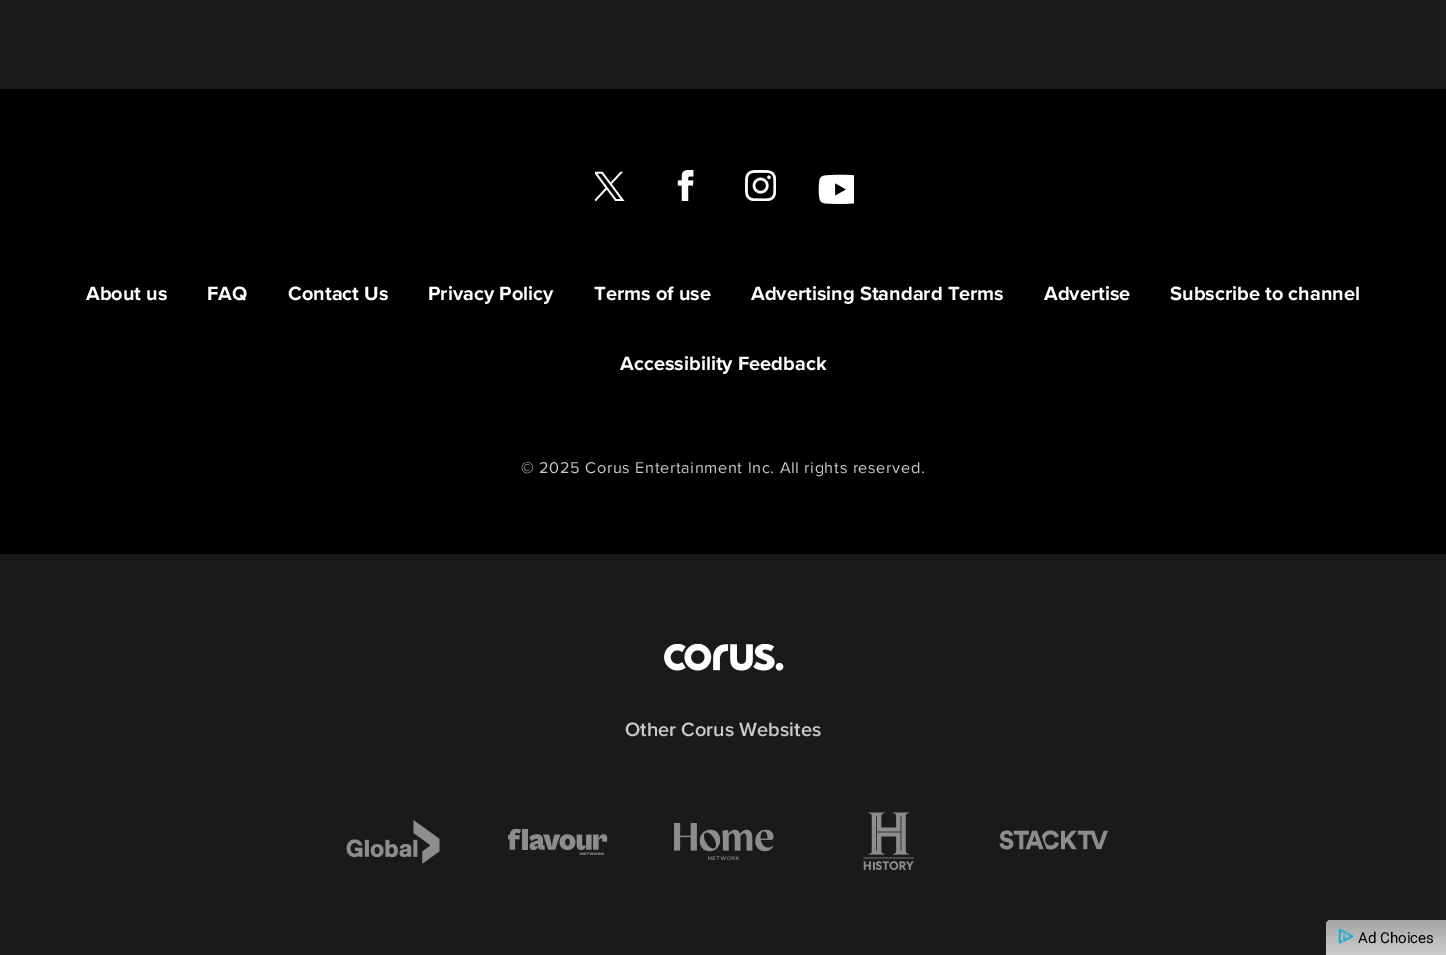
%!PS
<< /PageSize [1446 955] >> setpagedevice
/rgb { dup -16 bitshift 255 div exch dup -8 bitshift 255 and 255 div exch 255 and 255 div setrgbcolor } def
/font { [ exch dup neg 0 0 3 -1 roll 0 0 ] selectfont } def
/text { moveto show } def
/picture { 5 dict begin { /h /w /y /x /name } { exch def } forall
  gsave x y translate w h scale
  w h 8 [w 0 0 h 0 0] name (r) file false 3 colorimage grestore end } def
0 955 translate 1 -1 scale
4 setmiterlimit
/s1 { /ProximaNova-Bold 20 font 16#FFFFFF rgb } def
/s2 { /ProximaNova-SemiBold 20 font 16#CACACA rgb } def
/s3 { /Roboto-Regular 15 font 16#000000 rgb } def
16#1A1A1A rgb
0 0 1446 955 rectfill
16#000000 rgb
0 89 1446 465 rectfill
(pic1.raw) 595 171 30 30 picture
(pic2.raw) 677 170 17 31 picture
(pic3.raw) 745 170 31 31 picture
(pic4.raw) 818 174 36 30 picture
s1
(About us) 86 300 text
(FAQ) 207 300 text
(Contact Us) 288 300 text
(Privacy Policy) 428 300 text
(Terms of use) 594 300 text
(Advertising Standard Terms) 751 300 text
(Advertise) 1044 300 text
(Subscribe to channel) 1170 300 text
(Accessibility Feedback) 620 370 text
/ProximaNova-Regular 16.25 font
16#CACACA rgb
521 473 moveto 0.63 0 (© 2025 Corus Entertainment Inc. All rights reserved.) ashow
(pic5.raw) 664 644 120 27 picture
s2
(Other Corus Websites) 625 736 text
(pic6.raw) 346 820 94 44 picture
(pic7.raw) 508 829 100 26 picture
(pic8.raw) 674 823 100 37 picture
(pic9.raw) 863 812 51 58 picture
(pic10.raw) 999 830 109 20 picture
gsave 1332 920 moveto 1446 920 lineto 1446 955 lineto 1326 955 lineto 1326 926 lineto 1326 922.5 1328.5 920 1332 920 curveto closepath clip newpath
<< /ShadingType 2 /ColorSpace /DeviceRGB /Coords [1386 920 1386 955] /Extend [true true] /Function << /FunctionType 2 /Domain [0 1] /C0 [0.647 0.647 0.647] /C1 [0.804 0.804 0.804] /N 1 >> >> shfill grestore
(pic11.raw) 1338 928 16 16 picture
s3
(Ad Choices) 1358 943 text
showpage
